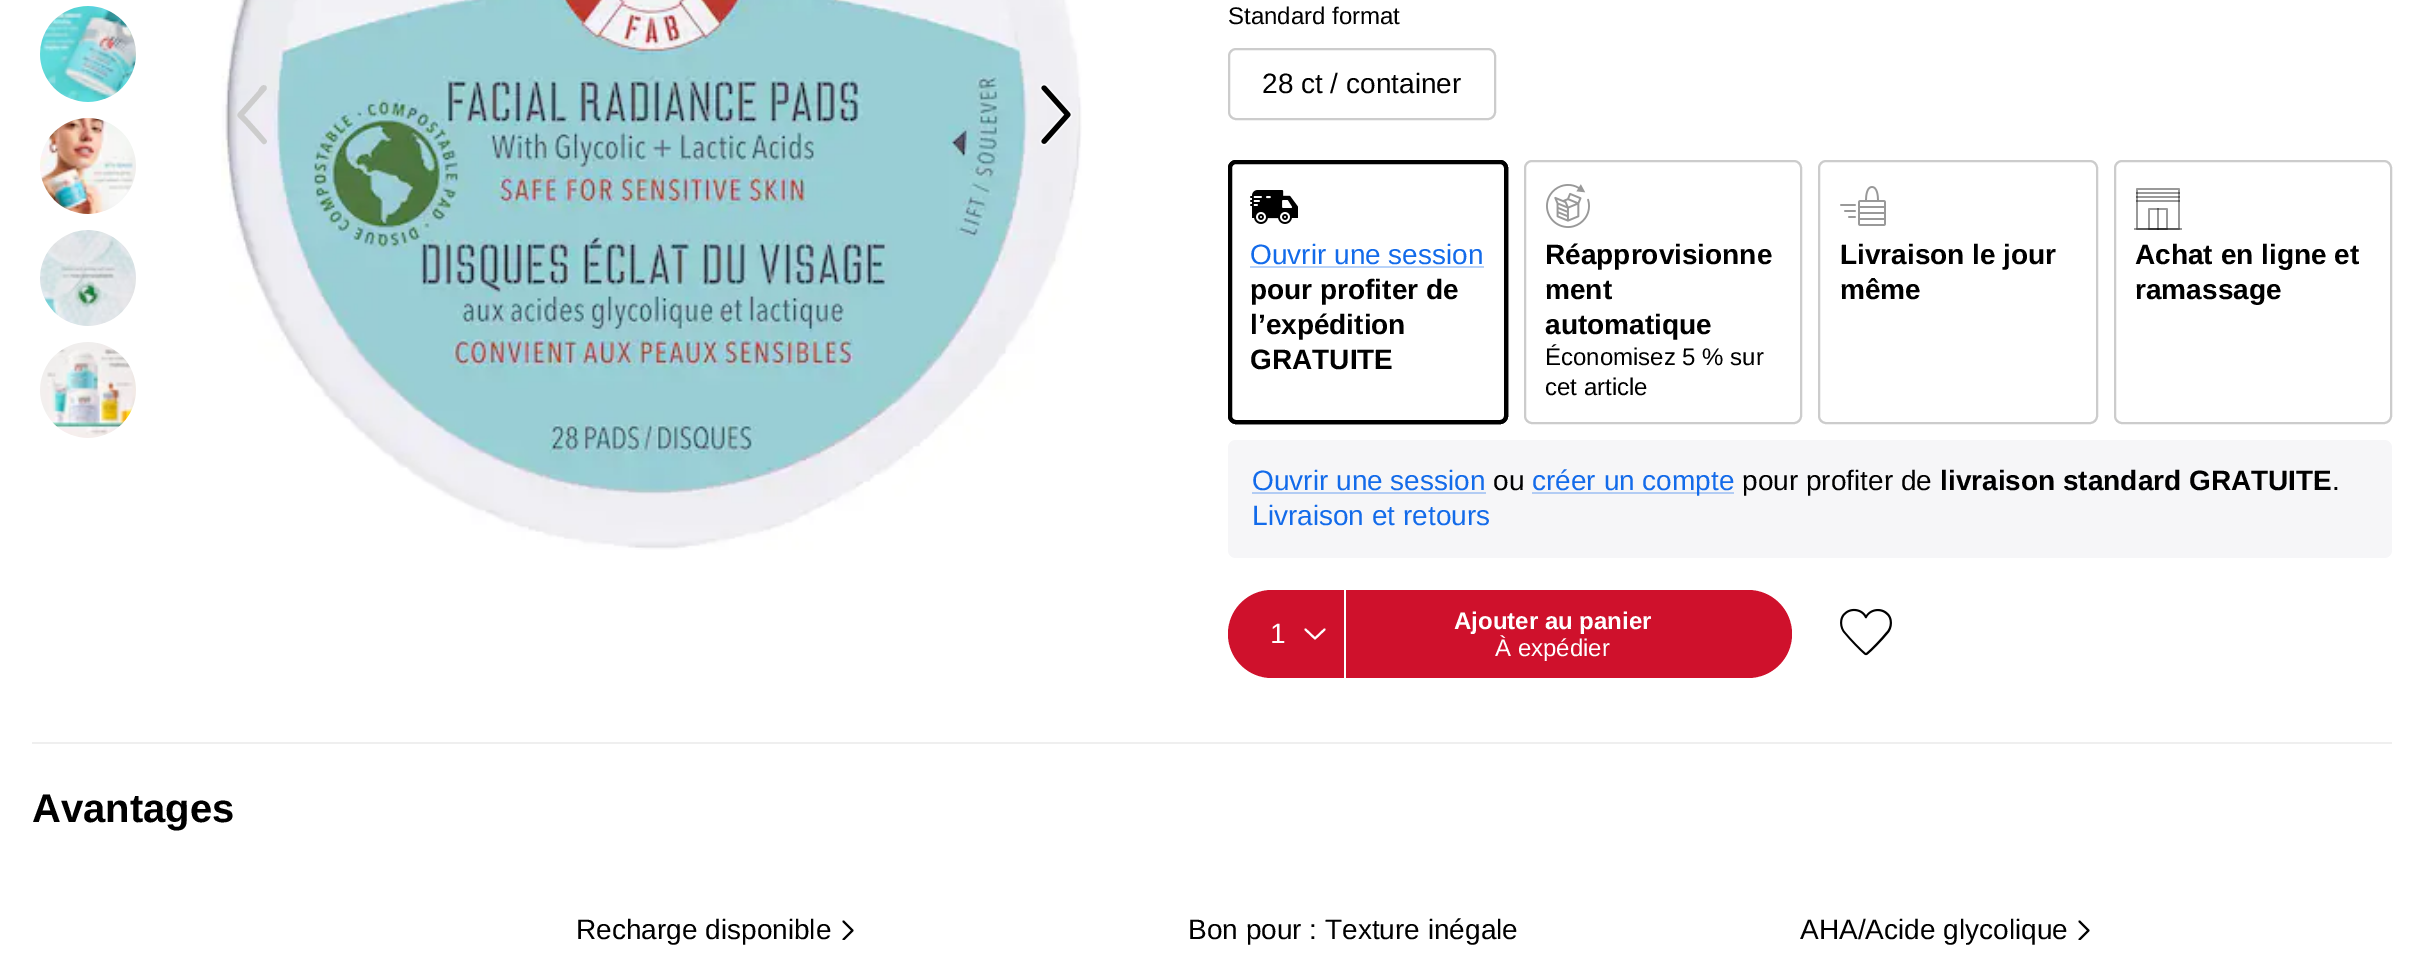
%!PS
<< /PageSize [2424 962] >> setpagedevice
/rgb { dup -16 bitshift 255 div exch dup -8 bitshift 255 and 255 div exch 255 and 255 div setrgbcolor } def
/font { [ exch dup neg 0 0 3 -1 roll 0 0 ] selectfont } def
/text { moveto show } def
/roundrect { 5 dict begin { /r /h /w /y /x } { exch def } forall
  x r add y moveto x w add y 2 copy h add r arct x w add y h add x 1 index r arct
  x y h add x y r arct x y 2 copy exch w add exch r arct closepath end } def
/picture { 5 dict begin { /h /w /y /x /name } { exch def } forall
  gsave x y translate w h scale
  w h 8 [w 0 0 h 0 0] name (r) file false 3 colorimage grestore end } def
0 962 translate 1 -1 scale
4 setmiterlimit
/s1 { /LiberationSans-Regular 24 font 16#000000 rgb } def
/s2 { /LiberationSans-Regular 28 font 16#000000 rgb } def
/s3 { /LiberationSans-Regular 28 font 16#136BEA rgb } def
/s4 { /LiberationSans-Bold 28 font 16#000000 rgb } def
/s5 { /LiberationSans-Regular 28 font 16#FFFFFF rgb } def
/s6 { /LiberationSans-Bold 24 font 16#FFFFFF rgb } def
/s7 { /LiberationSans-Regular 24 font 16#FFFFFF rgb } def
/s8 { /LiberationSans-Bold 40 font 16#000000 rgb } def
16#FFFFFF rgb
0 0 2424 962 rectfill
(pic1.raw) 40 6 96 96 picture
(pic2.raw) 40 118 96 96 picture
(pic3.raw) 40 230 96 96 picture
(pic4.raw) 40 342 96 96 picture
(pic5.raw) 221 0 861 550 picture
16#CCCCCC rgb
266 86 moveto 267 87 267 89 266 90 curveto 244 115 lineto 247 118 266 139 267 141 curveto 267 143 264 145 263 144 curveto 246 125 lineto 237 115 234 117 242 109 curveto 258 91 lineto 259 89 262 83 266 86 curveto closepath fill
(pic6.raw) 1039 83 34 63 picture
s1
(Standard format) 1228 24 text
16#CCCCCC rgb
2 setlinewidth
1229 49 266 70 7 roundrect stroke
s2
(28 ct / container) 1262 93 text
1229 161 278 262 7 roundrect stroke
(pic7.raw) 1250 190 48 34 picture
16#B8D3F9 rgb
1250 266 234 2 rectfill
16#000000 rgb
4 setlinewidth
1230 162 276 260 6 roundrect stroke
s3
(Ouvrir une session) 1250 264 text
s4
(pour profiter de) 1250 299 text
(l’expédition) 1250 334 text
(GRATUITE) 1250 369 text
16#F6F6F8 rgb
1228 440 1164 118 8 roundrect fill
s3
(Ouvrir une session) 1252 490 text
16#B2CCF4 rgb
1252 492 234 2 rectfill
s2
(ou) 1493 490 text
16#B2CCF4 rgb
1532 492 202 2 rectfill
s3
(créer un compte) 1532 490 text
s2
(pour profiter de) 1742 490 text
s4
(livraison standard GRATUITE) 1940 490 text
s2
(.) 2332 490 text
s3
(Livraison et retours) 1252 525 text
16#CCCCCC rgb
2 setlinewidth
1525 161 276 262 7 roundrect stroke
(pic8.raw) 1546 184 44 44 picture
s4
(Réapprovisionne) 1545 264 text
(ment) 1545 299 text
(automatique) 1545 334 text
s1
(Économisez 5 % sur) 1545 365 text
(cet article) 1545 395 text
16#CCCCCC rgb
1819 161 278 262 7 roundrect stroke
(pic9.raw) 1840 186 46 40 picture
s4
(Livraison le jour) 1840 264 text
(même) 1840 299 text
16#CCCCCC rgb
2115 161 276 262 7 roundrect stroke
(pic10.raw) 2134 188 48 42 picture
s4
(Achat en ligne et) 2135 264 text
(ramassage) 2135 299 text
16#CF112C rgb
1228 590 564 88 44 roundrect fill
16#FFFFFF rgb
1344 590 2 88 rectfill
s5
(1) 1270 643 text
1 setlinecap
1 setlinejoin
1305.5 629.5 moveto 1315 638.5 lineto 1324.5 629.5 lineto stroke
s6
(Ajouter au panier) 1454 629 text
s7
(À expédier) 1495 656 text
(pic11.raw) 1840 608 52 48 picture
16#EFEFEF rgb
32 742 2360 2 rectfill
s8
(Avantages) 32 822 text
s2
(Recharge disponible) 576 939 text
gsave
842 920 12 20 rectclip
843.5 939.5 moveto 852.5 930.5 lineto 843.5 921.5 lineto stroke
grestore
(Bon pour : Texture inégale) 1188 939 text
(AHA/Acide glycolique) 1800 939 text
gsave
2078 920 12 20 rectclip
2079.5 939.5 moveto 2088.5 930.5 lineto 2079.5 921.5 lineto stroke
grestore
showpage
